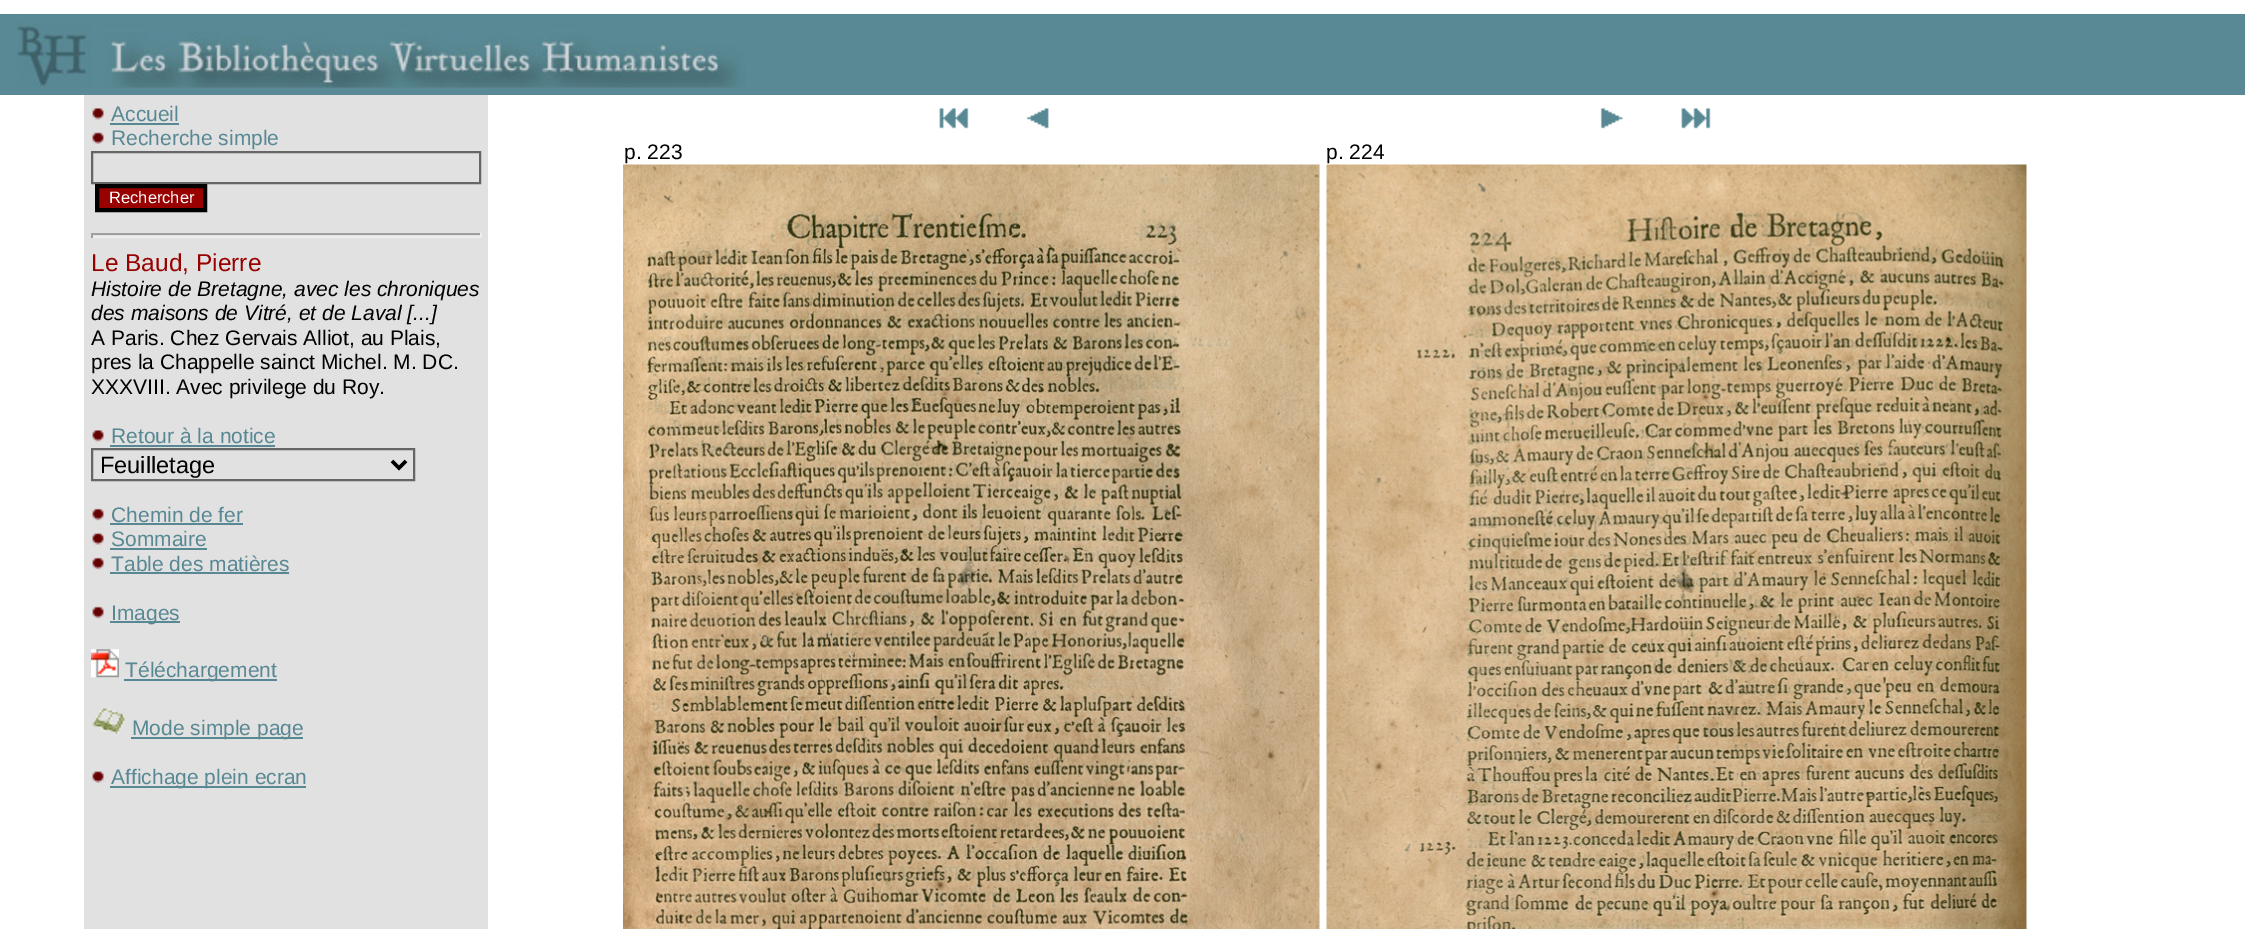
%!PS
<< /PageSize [2245 929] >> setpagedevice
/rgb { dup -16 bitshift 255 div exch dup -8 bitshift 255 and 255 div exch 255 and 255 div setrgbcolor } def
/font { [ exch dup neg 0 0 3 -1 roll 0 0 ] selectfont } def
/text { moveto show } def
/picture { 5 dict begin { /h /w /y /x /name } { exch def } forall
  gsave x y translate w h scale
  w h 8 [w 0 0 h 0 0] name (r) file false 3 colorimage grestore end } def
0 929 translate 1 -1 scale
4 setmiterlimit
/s1 { /LiberationSans-Regular 21 font 16#588893 rgb } def
/s2 { /LiberationSans-Regular 16.5 font 16#FFFFFF rgb } def
/s3 { /LiberationSans-Regular 24.5 font 16#990000 rgb } def
/s4 { /LiberationSans-Italic 21 font 16#000000 rgb } def
/s5 { /LiberationSans-Regular 21 font 16#000000 rgb } def
/s6 { /LiberationSans-Regular 23.5 font 16#000000 rgb } def
16#FFFFFF rgb
0 0 2245 929 rectfill
16#598995 rgb
0 14 2245 81 rectfill
(pic1.raw) 17 23 729 65 picture
16#E1E1E1 rgb
84 95 404 834 rectfill
(pic2.raw) 92 108 12 12 picture
s1
(Accueil) 111 121 text
110 123 69 2 rectfill
(pic3.raw) 92 132 13 13 picture
(Recherche simple) 111 145 text
16#666666 rgb
2 setlinewidth
92 152 388 31 rectstroke
16#990000 rgb
97 186 moveto 205 186 lineto 205 210 lineto 97 210 lineto closepath gsave fill grestore
16#000000 rgb
4 setlinewidth
stroke
s2
(Rechercher) 109 203 text
16#9F9F9F rgb
91 233 390 2 rectfill
16#EEEEEE rgb
480 233 2 5 rectfill
91 236 390 2 rectfill
16#9F9F9F rgb
91 233 2 5 rectfill
s3
(Le Baud, Pierre) 91 271 text
s4
(Histoire de Bretagne, avec les chroniques) 91 296 text
(des maisons de Vitré, et de Laval [...]) 91 320 text
s5
(A Paris. Chez Gervais Alliot, au Plais,) 91 345 text
(pres la Chappelle sainct Michel. M. DC.) 91 369 text
(XXXVIII. Avec privilege du Roy.) 91 394 text
(pic4.raw) 92 430 12 12 picture
s1
(Retour à la notice) 111 443 text
110 445 165 2 rectfill
16#666666 rgb
2 setlinewidth
92 449 322 31 rectstroke
16#000000 rgb
3.5 setlinewidth
392 461 moveto 399 468 lineto 406 461 lineto stroke
s6
(Feuilletage) 100 473 text
(pic5.raw) 92 508 12 13 picture
s1
(Chemin de fer) 111 522 text
110 523 133 2 rectfill
(pic6.raw) 92 533 13 13 picture
(Sommaire) 111 546 text
110 548 97 2 rectfill
(pic5.raw) 92 557 12 13 picture
(Table des matières) 111 571 text
110 572 179 2 rectfill
(pic5.raw) 92 606 12 13 picture
110 621 70 2 rectfill
(Images) 111 620 text
(pic7.raw) 91 649 28 29 picture
124 679 153 2 rectfill
(Téléchargement) 125 677 text
(pic8.raw) 92 708 33 26 picture
131 737 172 2 rectfill
(Mode simple page) 132 735 text
(pic6.raw) 92 771 13 13 picture
110 786 196 2 rectfill
(Affichage plein ecran) 111 784 text
(pic9.raw) 939 108 30 21 picture
(pic10.raw) 1026 108 23 21 picture
(pic11.raw) 1600 108 23 21 picture
(pic12.raw) 1681 108 30 21 picture
s5
(p. 223) 624 159 text
(pic13.raw) 623 164 697 765 picture
(p. 224) 1326 159 text
(pic14.raw) 1326 164 701 765 picture
showpage
